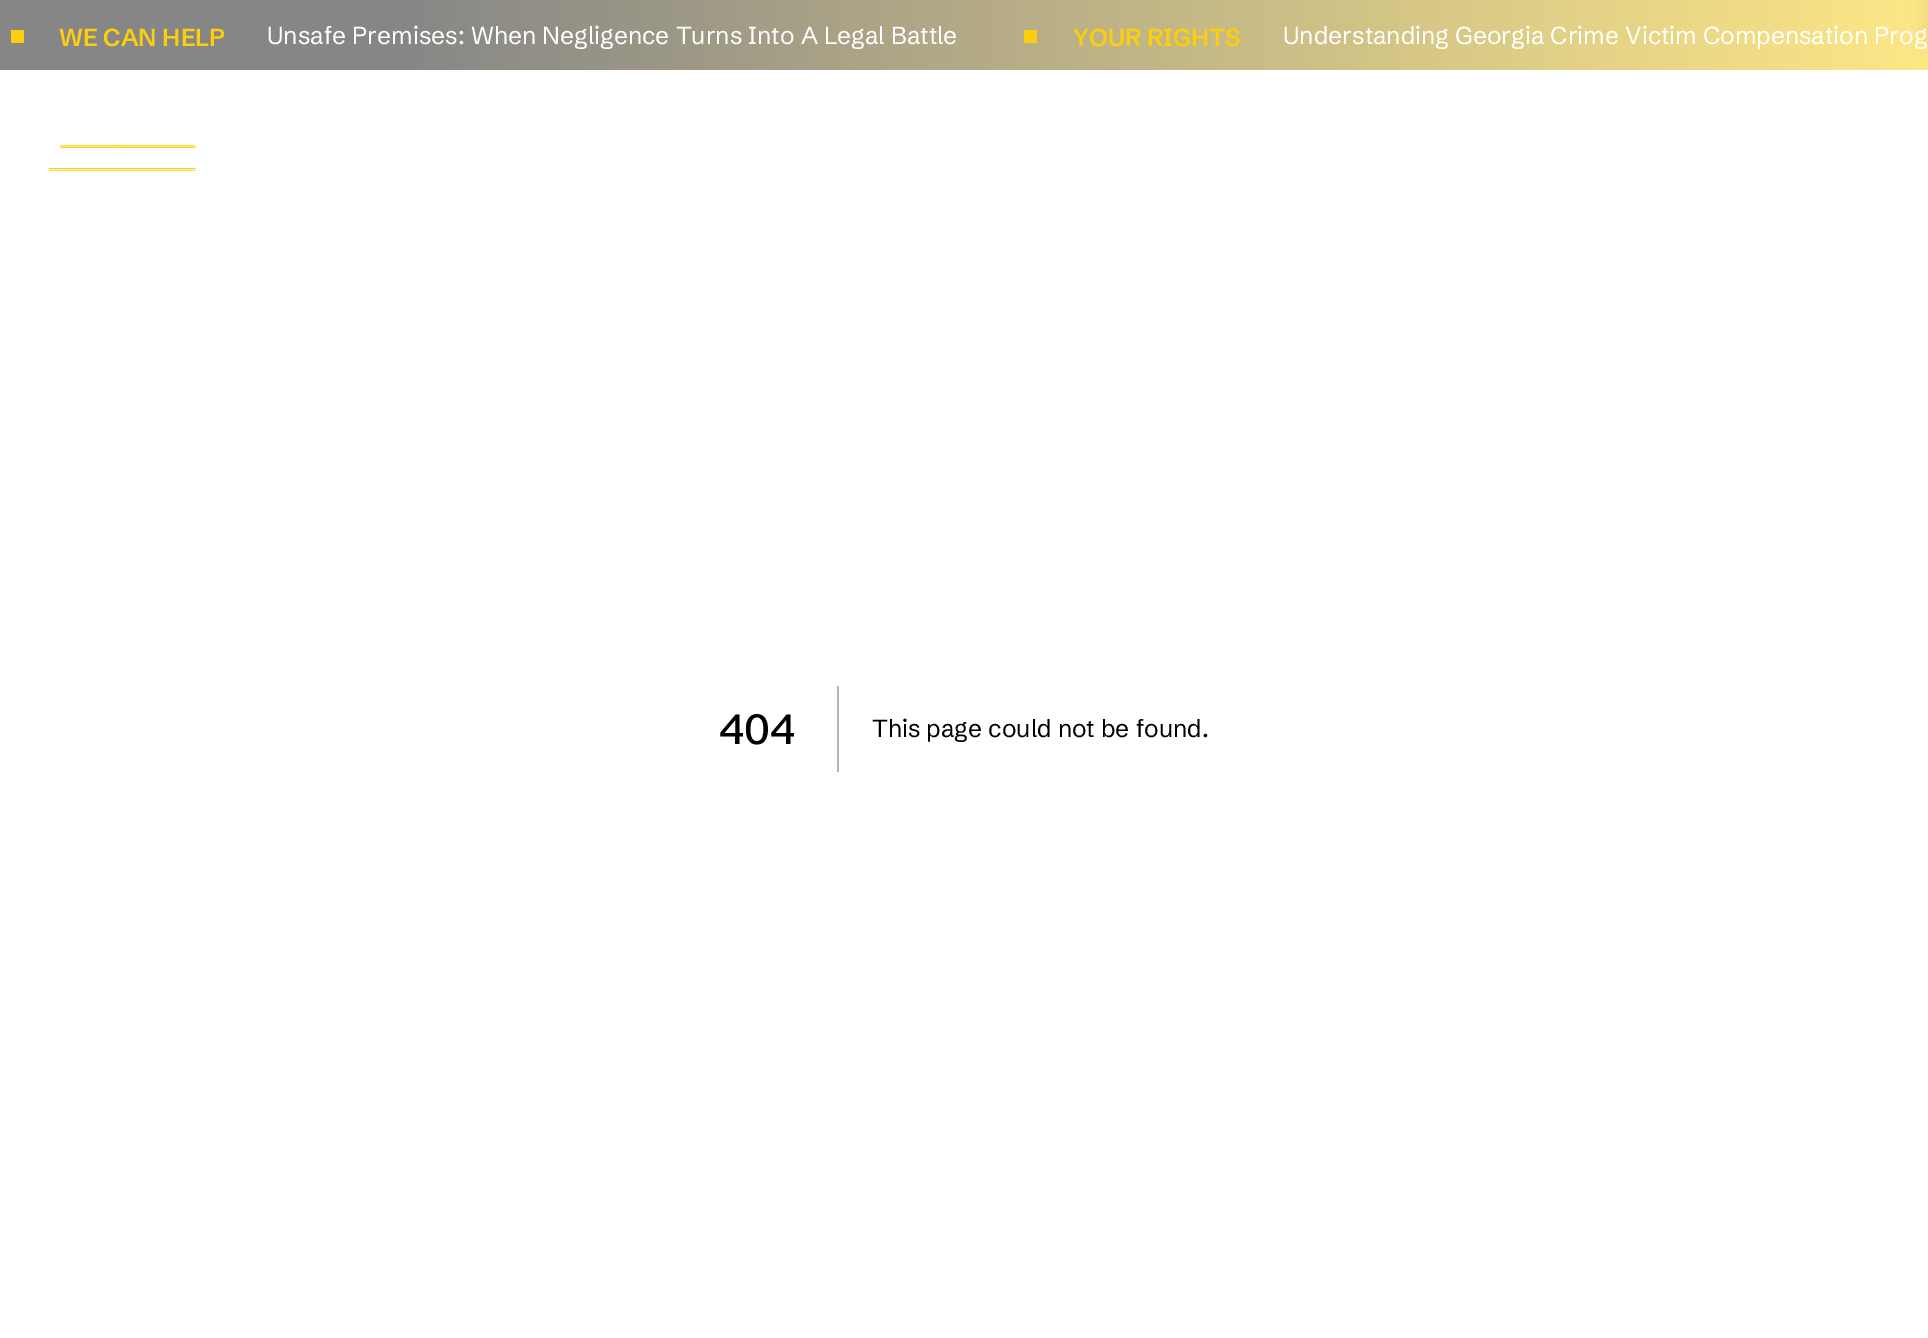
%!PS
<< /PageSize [1928 1338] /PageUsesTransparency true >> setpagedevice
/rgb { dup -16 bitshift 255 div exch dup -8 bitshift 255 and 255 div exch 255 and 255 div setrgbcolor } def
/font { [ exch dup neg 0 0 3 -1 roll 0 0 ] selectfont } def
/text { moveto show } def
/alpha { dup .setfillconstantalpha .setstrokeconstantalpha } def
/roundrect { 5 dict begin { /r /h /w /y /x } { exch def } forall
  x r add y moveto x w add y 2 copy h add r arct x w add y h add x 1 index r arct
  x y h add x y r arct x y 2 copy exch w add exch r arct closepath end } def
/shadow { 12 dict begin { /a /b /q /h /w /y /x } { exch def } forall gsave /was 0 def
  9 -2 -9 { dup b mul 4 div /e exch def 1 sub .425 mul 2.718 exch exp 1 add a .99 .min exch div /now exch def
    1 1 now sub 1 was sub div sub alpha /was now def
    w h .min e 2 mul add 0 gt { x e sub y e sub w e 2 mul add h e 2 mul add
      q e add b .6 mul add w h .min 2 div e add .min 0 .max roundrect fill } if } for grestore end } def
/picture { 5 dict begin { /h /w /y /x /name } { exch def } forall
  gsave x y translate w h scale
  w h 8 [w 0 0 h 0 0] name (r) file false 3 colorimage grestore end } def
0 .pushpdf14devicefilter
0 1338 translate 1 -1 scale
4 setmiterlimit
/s1 { /SchibstedGrotesk-SemiBold 24.5 font 16#FCCE0D rgb } def
/s2 { /SchibstedGrotesk-Regular 24.5 font 16#FFFFFF rgb } def
/s3 { /SchibstedGrotesk-Medium 42 font 16#000000 rgb } def
/s4 { /SchibstedGrotesk-Regular 24.5 font 16#000000 rgb } def
16#FFFFFF rgb
0 0 1928 1338 rectfill
gsave 0 0 moveto 1928 0 lineto 1928 70 lineto 0 70 lineto closepath clip newpath
<< /ShadingType 2 /ColorSpace /DeviceRGB /Coords [0 35 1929 35] /Extend [true true] /Function << /FunctionType 3 /Domain [0 1] /Functions [<< /FunctionType 2 /Domain [0 1] /C0 [0.525 0.525 0.525] /C1 [0.525 0.525 0.525] /N 1 >> << /FunctionType 2 /Domain [0 1] /C0 [0.525 0.525 0.525] /C1 [0.996 0.906 0.525] /N 1 >>] /Bounds [0.2] /Encode [0 1 0 1] >> >> shfill grestore
16#000000 rgb
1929 0 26 42 0 9 0.1 shadow
(pic1.raw) 48 145 148 26 picture
16#FCCE0D rgb
11 30 13 13 rectfill
s1
(WE CAN HELP) 59 46 text
s2
(Unsafe Premises: When Negligence Turns Into A Legal Battle) 267 44 text
16#FCCE0D rgb
1024 30 13 13 rectfill
s1
(YOUR RIGHTS) 1073 46 text
s2
(Understanding Georgia Crime Victim Compensation Prog) 1283 44 text
16#B3B3B3 rgb
837 686 2 86 rectfill
s3
(404) 719 744 text
s4
(This page could not be found.) 872 737 text
.poppdf14devicefilter showpage
